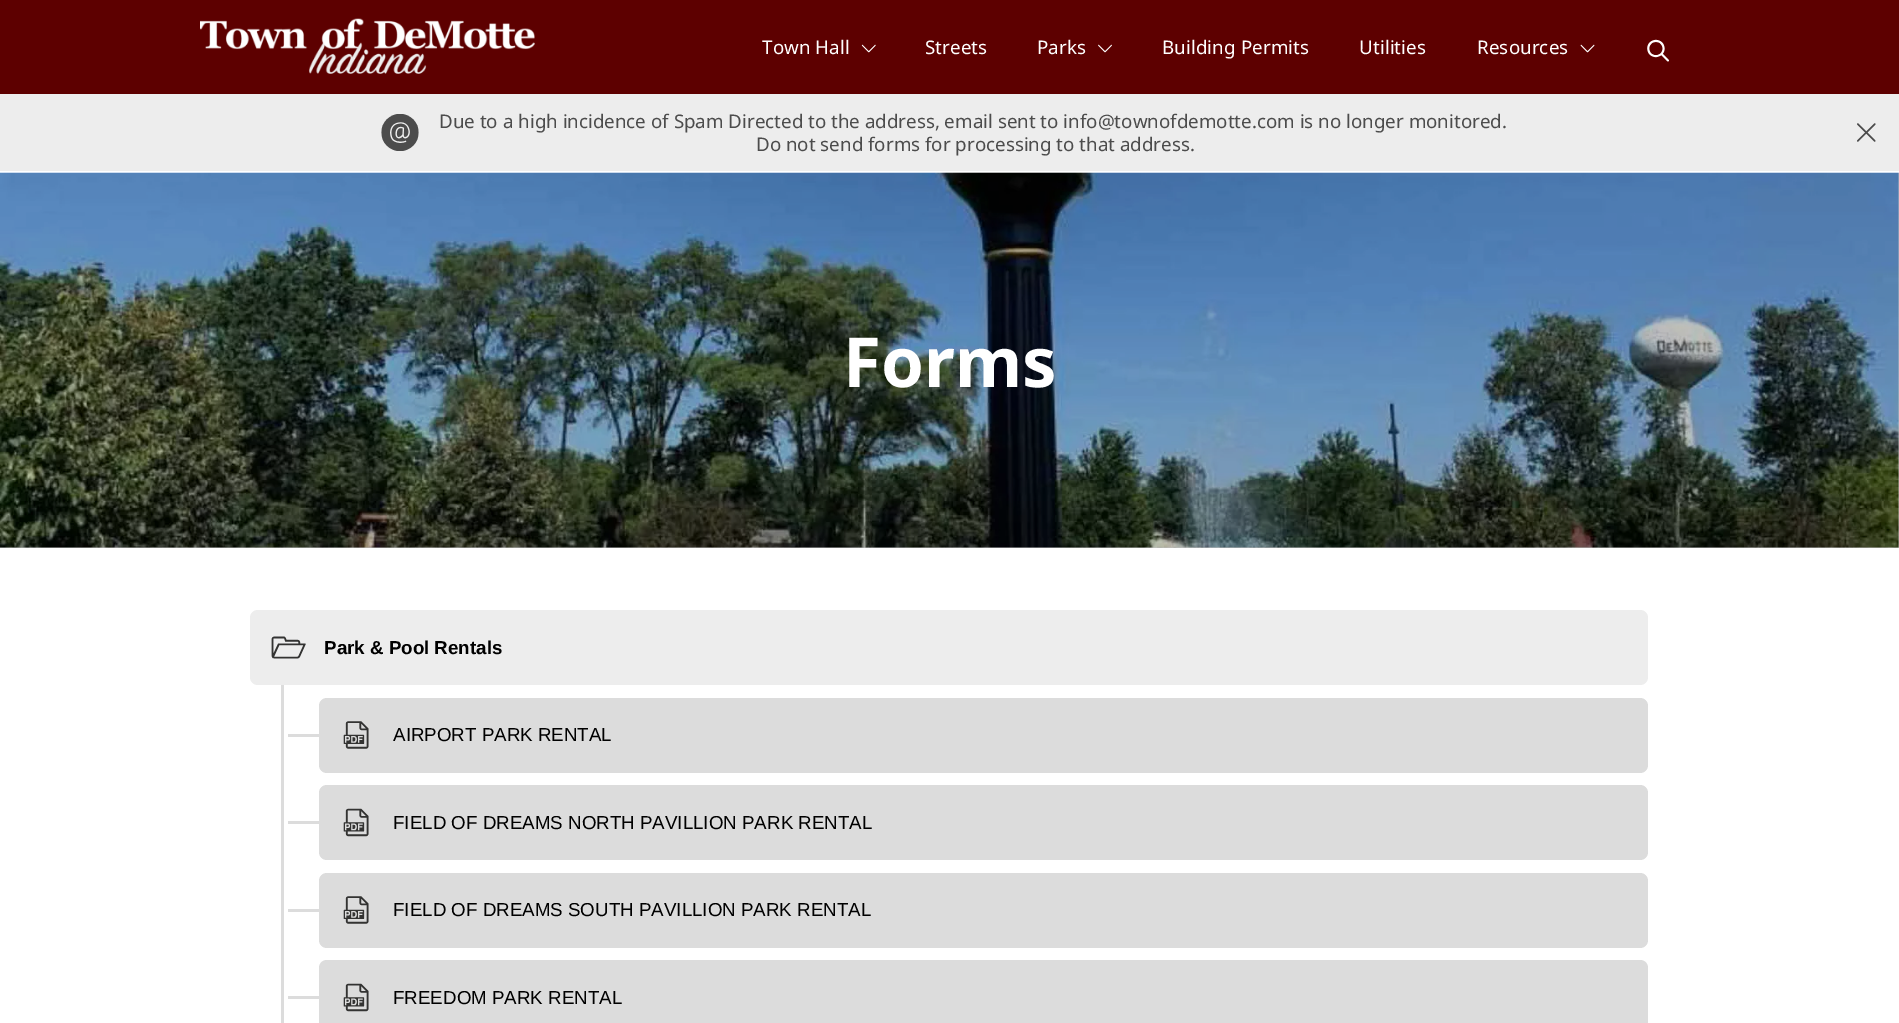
%!PS
<< /PageSize [1899 1023] >> setpagedevice
/rgb { dup -16 bitshift 255 div exch dup -8 bitshift 255 and 255 div exch 255 and 255 div setrgbcolor } def
/font { [ exch dup neg 0 0 3 -1 roll 0 0 ] selectfont } def
/text { moveto show } def
/roundrect { 5 dict begin { /r /h /w /y /x } { exch def } forall
  x r add y moveto x w add y 2 copy h add r arct x w add y h add x 1 index r arct
  x y h add x y r arct x y 2 copy exch w add exch r arct closepath end } def
/picture { 5 dict begin { /h /w /y /x /name } { exch def } forall
  gsave x y translate w h scale
  w h 8 [w 0 0 h 0 0] name (r) file false 3 colorimage grestore end } def
0 1023 translate 1 -1 scale
4 setmiterlimit
/s1 { /NotoSans-Regular 18.75 font 16#4C4C4C rgb } def
/s2 { /NotoSans-Bold 69 font 16#FFFFFF rgb } def
/s3 { /LiberationSans-Bold 18.75 font 16#000000 rgb } def
/s4 { /LiberationSans-Regular 18.75 font 16#000000 rgb } def
16#FFFFFF rgb
0 0 1899 1023 rectfill
16#BFBFBF rgb
0 173 1899 375 rectfill
16#5D0000 rgb
0 0 1899 94 rectfill
(pic1.raw) 200 18 335 56 picture
/NotoSans-Regular 18.75 font
16#FFFFFF rgb
762 54 moveto 0.1 0 (Town Hall) ashow
(pic2.raw) 861 44 15 9 picture
925 54 moveto 0.1 0 (Streets) ashow
1037 54 moveto 0.1 0 (Parks) ashow
(pic3.raw) 1098 44 14 9 picture
1162 54 moveto 0.1 0 (Building Permits) ashow
1359 54 moveto 0.1 0 (Utilities) ashow
1477 54 moveto 0.1 0 (Resources) ashow
(pic4.raw) 1580 44 15 9 picture
(pic5.raw) 1647 39 22 23 picture
16#EDEDED rgb
0 94 1899 79 rectfill
16#FFFFFF rgb
0 171 1899 1 rectfill
(pic6.raw) 381 114 38 37 picture
s1
(Due to a high incidence of Spam Directed to the address, email sent to info@townofdemotte.com is no longer monitored.) 439 128 text
(Do not send forms for processing to that address.) 756 151 text
(pic7.raw) 1857 123 19 19 picture
(pic8.raw) 0 172 1899 376 picture
s2
(Forms) 843 387 text
16#EDEDED rgb
250 610 1398 75 8 roundrect fill
(pic9.raw) 271 636 35 23 picture
s3
(Park & Pool Rentals) 324 654 text
16#DCDCDC rgb
281 685 3 338 rectfill
319 698 1329 75 8 roundrect fill
288 734 32 3 rectfill
(pic10.raw) 343 721 26 28 picture
s4
(AIRPORT PARK RENTAL) 393 741 text
16#DCDCDC rgb
319 785 1329 75 8 roundrect fill
288 821 32 3 rectfill
(pic11.raw) 343 808 26 29 picture
s4
(FIELD OF DREAMS NORTH PAVILLION PARK RENTAL) 393 829 text
16#DCDCDC rgb
319 873 1329 75 8 roundrect fill
288 909 32 3 rectfill
(pic10.raw) 343 896 26 28 picture
s4
(FIELD OF DREAMS SOUTH PAVILLION PARK RENTAL) 393 916 text
16#DCDCDC rgb
327 960 moveto 1640 960 lineto 1644.5 960 1648 963.5 1648 968 curveto 1648 1023 lineto 319 1023 lineto 319 968 lineto 319 963.5 322.5 960 327 960 curveto closepath fill
288 996 32 3 rectfill
(pic11.raw) 343 983 26 29 picture
s4
(FREEDOM PARK RENTAL) 393 1004 text
showpage
